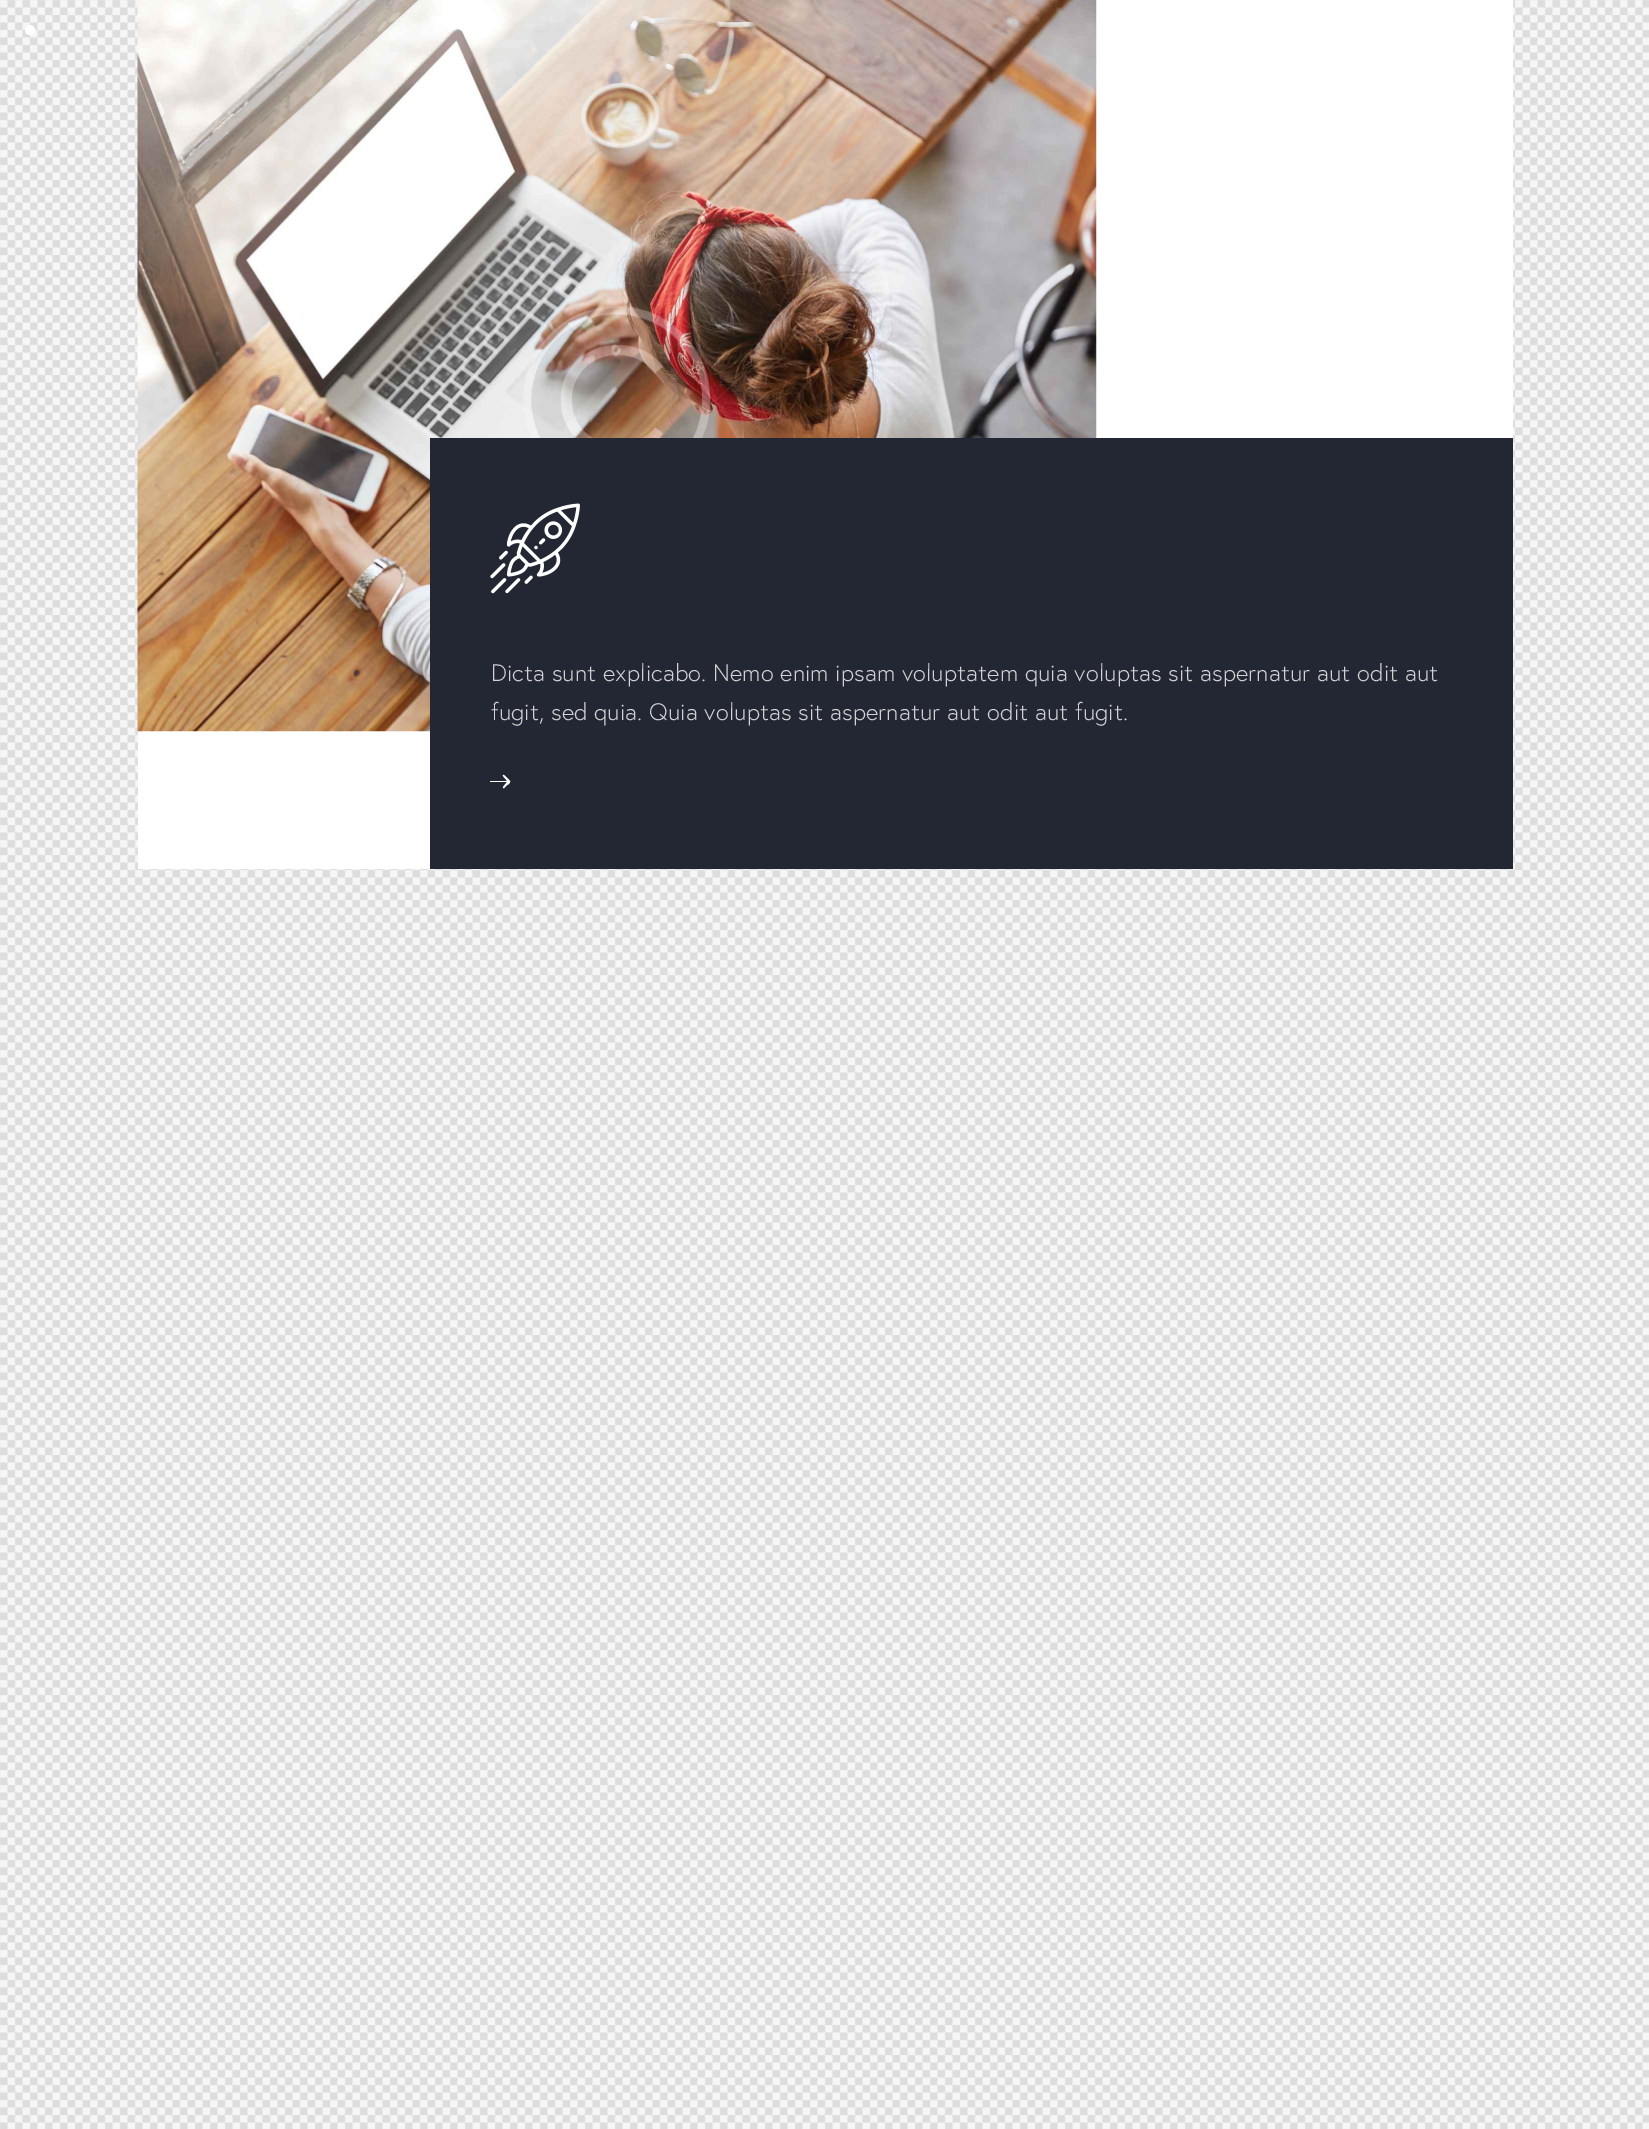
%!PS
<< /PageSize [1649 2129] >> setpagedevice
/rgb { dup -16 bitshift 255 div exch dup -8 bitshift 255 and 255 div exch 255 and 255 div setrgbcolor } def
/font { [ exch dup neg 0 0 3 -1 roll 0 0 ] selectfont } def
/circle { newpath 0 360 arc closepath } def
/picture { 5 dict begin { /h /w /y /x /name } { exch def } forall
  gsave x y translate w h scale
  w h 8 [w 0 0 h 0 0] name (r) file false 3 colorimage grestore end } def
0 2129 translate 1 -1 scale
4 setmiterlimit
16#FFFFFF rgb
0 0 1649 2129 rectfill
(pic1.raw) 0 0 1649 2129 picture
30 30 5 circle fill
138 0 1375 869 rectfill
(pic2.raw) 137 0 960 732 picture
16#222733 rgb
430 438 1083 431 rectfill
(pic3.raw) 490 503 90 91 picture
/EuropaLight-Light 23.75 font
16#D3D4D6 rgb
491 681 moveto 0.12 0 (Dicta sunt explicabo. Nemo enim ipsam voluptatem quia voluptas sit aspernatur aut odit aut) ashow
491 720 moveto 0.12 0 (fugit, sed quia. Quia voluptas sit aspernatur aut odit aut fugit.) ashow
gsave
490 770 21 25 rectclip
16#FFFFFF rgb
510 781 moveto 509 780 504 774 503 775 curveto 502 776 507 780 507 781 curveto 461 781 lineto 460 781 lineto 460 782 lineto 507 782 lineto 503 787 lineto 503 790 505 787 507 785 curveto 508 785 511 782 510 781 curveto closepath fill
grestore
showpage
